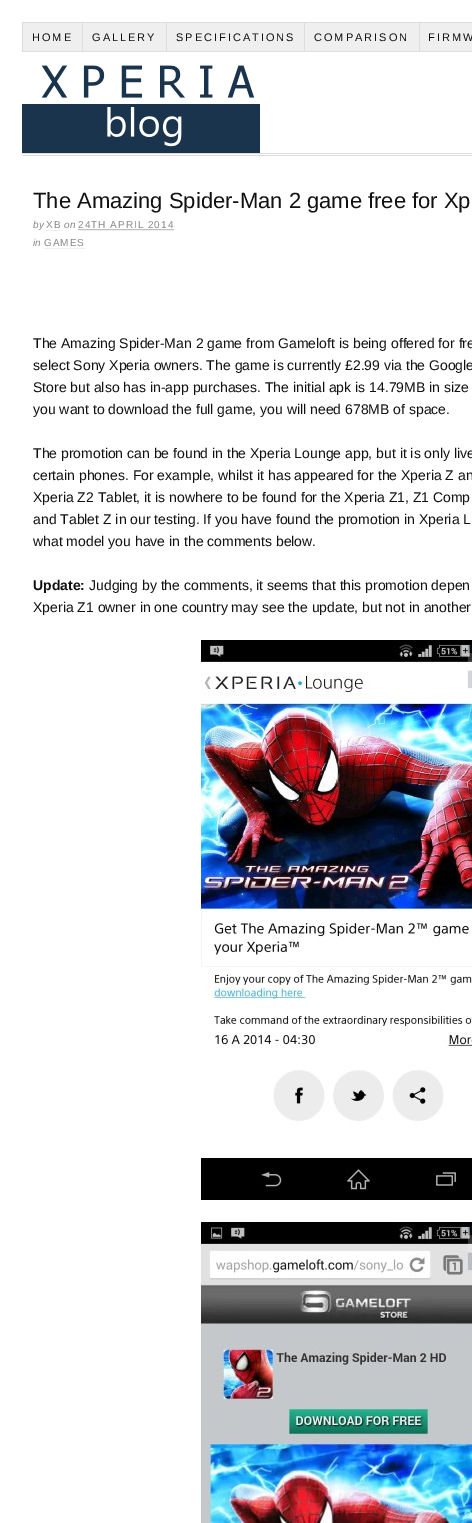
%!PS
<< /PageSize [472 1523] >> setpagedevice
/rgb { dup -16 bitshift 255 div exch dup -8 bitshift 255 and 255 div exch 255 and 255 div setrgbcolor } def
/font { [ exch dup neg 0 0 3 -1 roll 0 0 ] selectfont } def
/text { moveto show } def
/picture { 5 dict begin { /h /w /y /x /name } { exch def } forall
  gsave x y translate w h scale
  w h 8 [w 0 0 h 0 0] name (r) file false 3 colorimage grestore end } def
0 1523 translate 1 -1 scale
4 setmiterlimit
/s1 { /LiberationSans-Regular 22 font 16#111111 rgb } def
/s2 { /LiberationSans-Italic 10 font 16#888888 rgb } def
/s3 { /LiberationSans-Regular 14 font 16#111111 rgb } def
/s4 { /LiberationSans-Bold 14 font 16#111111 rgb } def
16#FFFFFF rgb
0 0 472 1523 rectfill
16#DDDDDD rgb
22 51 450 1 rectfill
22 22 1 30 rectfill
16#EFEFEF rgb
23 23 59 28 rectfill
16#DDDDDD rgb
23 22 449 1 rectfill
82 22 1 30 rectfill
/LiberationSans-Regular 11 font
16#111111 rgb
32 41 moveto 2 0 (HOME) ashow
16#EFEFEF rgb
83 23 83 28 rectfill
16#DDDDDD rgb
166 22 1 30 rectfill
16#111111 rgb
92 41 moveto 2 0 (GALLERY) ashow
16#EFEFEF rgb
167 23 137 28 rectfill
16#DDDDDD rgb
304 22 1 30 rectfill
16#111111 rgb
176 41 moveto 2 0 (SPECIFICATIONS) ashow
16#EFEFEF rgb
305 23 114 28 rectfill
16#DDDDDD rgb
419 22 1 30 rectfill
16#111111 rgb
314 41 moveto 2 0 (COMPARISON) ashow
16#EFEFEF rgb
420 23 52 28 rectfill
16#111111 rgb
428 41 moveto 2 0 (FIRMW) ashow
(pic1.raw) 22 65 238 88 picture
16#DDDDDD rgb
22 153 450 1 rectfill
22 155 450 1 rectfill
s1
(The Amazing Spider-Man 2 game free for Xp) 33 208 text
s2
(by) 33 228 text
/LiberationSans-Regular 10 font
46 228 moveto 1 0 (XB) ashow
16#EEEEEE rgb
46 230 16 1 rectfill
s2
(on) 64 228 text
/LiberationSans-Regular 10 font
78 228 moveto 1 0 (24TH APRIL 2014) ashow
[1 1] 0 setdash
78.5 229.5 moveto 174.5 229.5 lineto stroke
s2
(in) 33 246 text
/LiberationSans-Regular 10 font
44 246 moveto 1 0 (GAMES) ashow
16#EEEEEE rgb
44 248 41 1 rectfill
s3
(The Amazing Spider-Man 2 game from Gameloft is being offered for fre) 33 348 text
(select Sony Xperia owners. The game is currently £2.99 via the Google) 33 370 text
(Store but also has in-app purchases. The initial apk is 14.79MB in size) 33 392 text
(you want to download the full game, you will need 678MB of space.) 33 414 text
(The promotion can be found in the Xperia Lounge app, but it is only live) 33 458 text
(certain phones. For example, whilst it has appeared for the Xperia Z an) 33 480 text
(Xperia Z2 Tablet, it is nowhere to be found for the Xperia Z1, Z1 Comp) 33 502 text
(and Tablet Z in our testing. If you have found the promotion in Xperia L) 33 524 text
(what model you have in the comments below.) 33 546 text
s4
(Update:) 33 590 text
s3
(Judging by the comments, it seems that this promotion depen) 89 590 text
(Xperia Z1 owner in one country may see the update, but not in another) 33 612 text
(pic2.raw) 201 640 271 560 picture
(pic3.raw) 201 1222 271 301 picture
showpage
